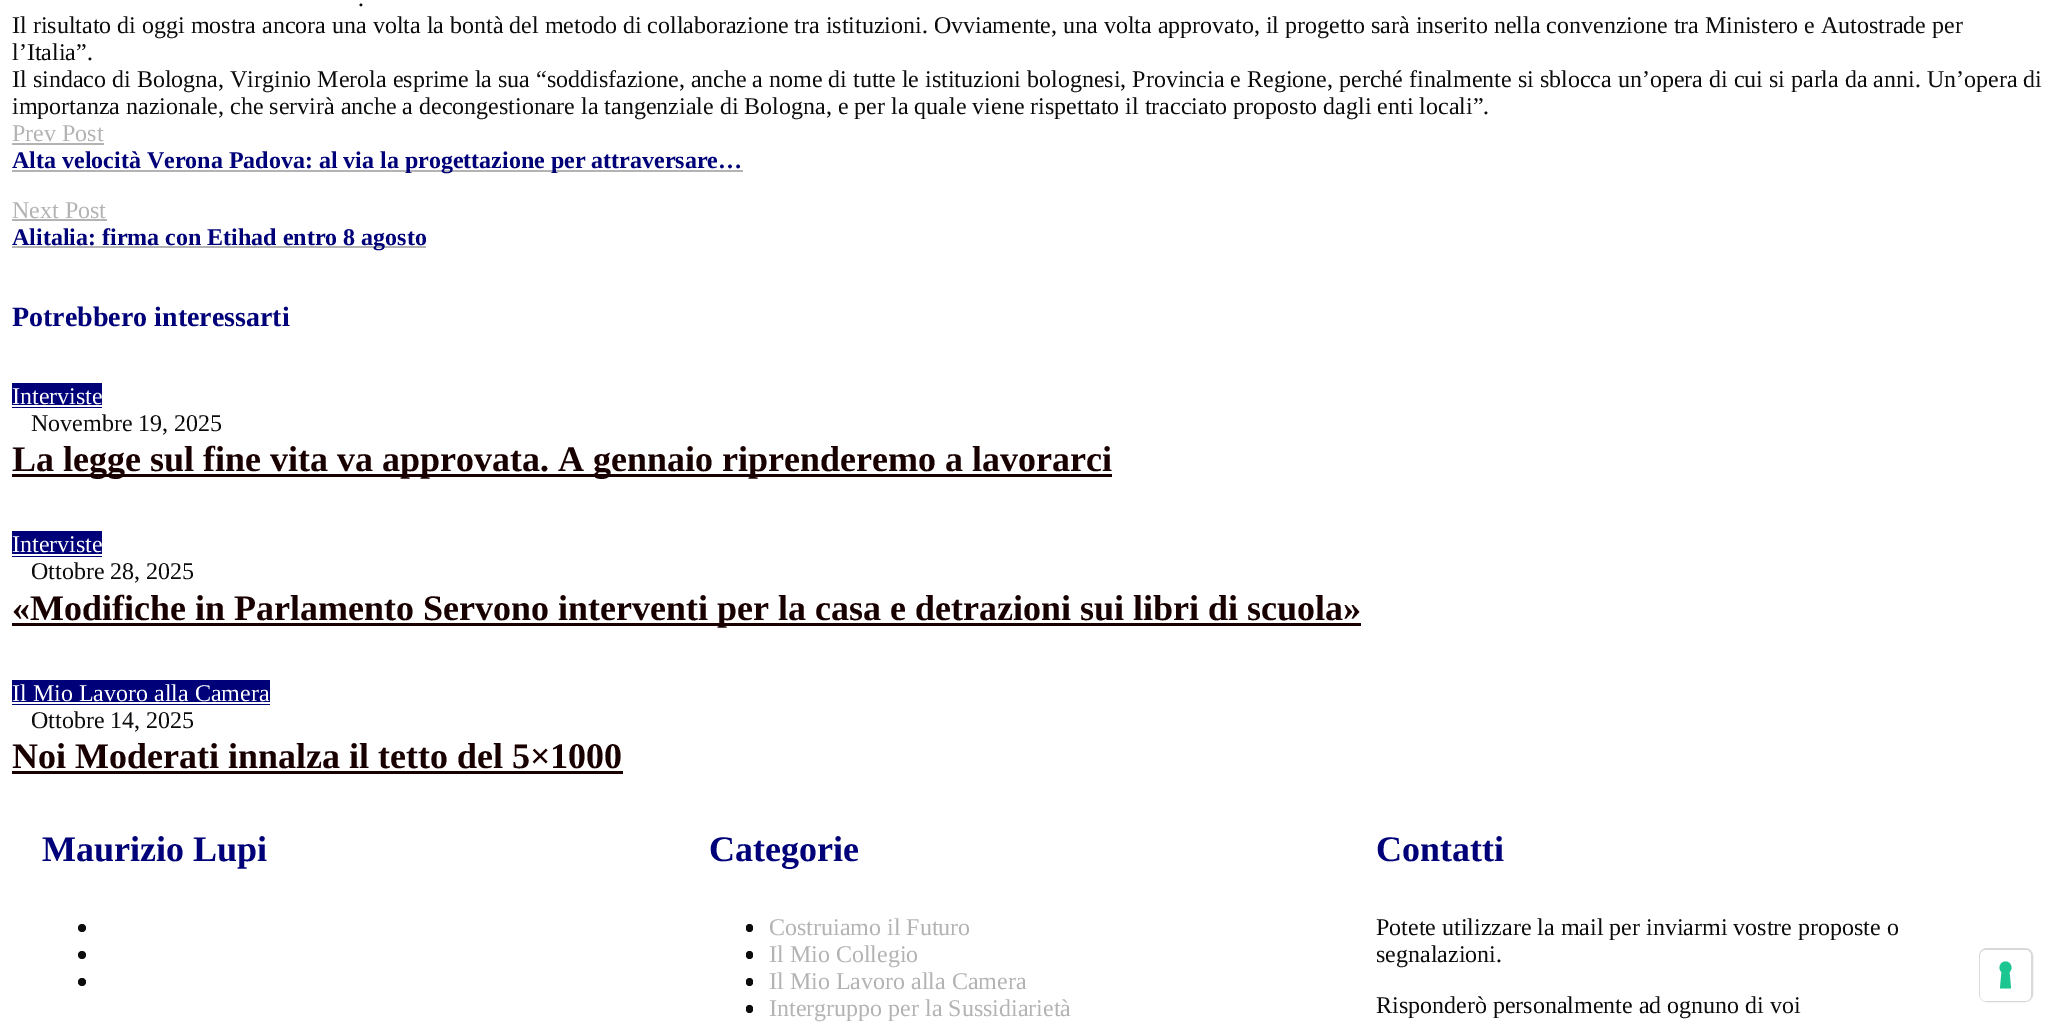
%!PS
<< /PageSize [2054 1024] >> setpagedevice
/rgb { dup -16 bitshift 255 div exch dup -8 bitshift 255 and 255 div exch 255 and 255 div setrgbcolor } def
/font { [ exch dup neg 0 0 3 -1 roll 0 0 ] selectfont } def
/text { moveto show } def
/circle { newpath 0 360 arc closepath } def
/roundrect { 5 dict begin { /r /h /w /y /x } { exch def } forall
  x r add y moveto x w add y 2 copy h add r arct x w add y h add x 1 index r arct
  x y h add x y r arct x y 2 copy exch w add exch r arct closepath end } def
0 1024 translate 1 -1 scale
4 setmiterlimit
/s1 { /LiberationSerif-Regular 24 font 16#0C0C0C rgb } def
/s2 { /LiberationSerif-Regular 24 font 16#B3B3B3 rgb } def
/s3 { /LiberationSerif-Bold 24 font 16#000179 rgb } def
/s4 { /LiberationSerif-Bold 28 font 16#000179 rgb } def
/s5 { /LiberationSerif-Regular 24 font 16#FFFFFF rgb } def
/s6 { /LiberationSerif-Bold 36 font 16#190000 rgb } def
/s7 { /LiberationSerif-Bold 36 font 16#000179 rgb } def
16#FFFFFF rgb
0 0 2054 1024 rectfill
s1
(.) 358 6 text
(Il risultato di oggi mostra ancora una volta la bontà del metodo di collaborazione tra istituzioni. Ovviamente, una volta approvato, il progetto sarà inserito nella convenzione tra Ministero e Autostrade per) 12 33 text
(l’Italia”.) 12 60 text
(Il sindaco di Bologna, Virginio Merola esprime la sua “soddisfazione, anche a nome di tutte le istituzioni bolognesi, Provincia e Regione, perché finalmente si sblocca un’opera di cui si parla da anni. Un’opera di) 12 87 text
(importanza nazionale, che servirà anche a decongestionare la tangenziale di Bologna, e per la quale viene rispettato il tracciato proposto dagli enti locali”.) 12 114 text
s2
(Prev Post) 12 141 text
12 143 92 2 rectfill
12 170 731 2 rectfill
s3
(Alta velocità Verona Padova: al via la progettazione per attraversare…) 12 168 text
s2
(Next Post) 12 218 text
12 219 95 2 rectfill
12 246 414 2 rectfill
s3
(Alitalia: firma con Etihad entro 8 agosto) 12 245 text
s4
(Potrebbero interessarti) 12 326 text
12 383 90 25 rectfill
s5
(Interviste) 12 404 text
12 405 90 2 rectfill
s1
(Novembre 19, 2025) 31 431 text
16#190000 rgb
12 474 1100 3 rectfill
s6
(La legge sul fine vita va approvata. A gennaio riprenderemo a lavorarci) 12 471 text
16#000179 rgb
12 531 90 26 rectfill
s5
(Interviste) 12 552 text
12 554 90 2 rectfill
s1
(Ottobre 28, 2025) 31 579 text
16#190000 rgb
12 623 1349 3 rectfill
s6
(«Modifiche in Parlamento Servono interventi per la casa e detrazioni sui libri di scuola») 12 620 text
16#000179 rgb
12 680 258 25 rectfill
s5
(Il Mio Lavoro alla Camera) 12 701 text
12 702 258 2 rectfill
s1
(Ottobre 14, 2025) 31 728 text
s6
(Noi Moderati innalza il tetto del 5×1000) 12 768 text
12 771 611 3 rectfill
s7
(Maurizio Lupi) 42 861 text
16#0C0C0C rgb
82 928 4 circle fill
82 955 4 circle fill
82 982 4 circle fill
s7
(Categorie) 709 861 text
16#0C0C0C rgb
746 924 7 8 3.5 roundrect fill
s2
(Costruiamo il Futuro) 769 935 text
16#0C0C0C rgb
746 951 7 8 3.5 roundrect fill
s2
(Il Mio Collegio) 769 962 text
16#0C0C0C rgb
746 978 7 8 3.5 roundrect fill
s2
(Il Mio Lavoro alla Camera) 769 989 text
16#0C0C0C rgb
746 1005 7 8 3.5 roundrect fill
s2
(Intergruppo per la Sussidiarietà) 769 1016 text
s7
(Contatti) 1376 861 text
s1
(Potete utilizzare la mail per inviarmi vostre proposte o) 1376 935 text
(segnalazioni.) 1376 962 text
(Risponderò personalmente ad ognuno di voi) 1376 1013 text
16#D9D9D9 rgb
2 setlinewidth
1980 949 52 52 7 roundrect stroke
16#FFFFFF rgb
1980 950 51 51 6 roundrect fill
16#1CC691 rgb
2005.5 961.5 moveto 2011 961.5 2013.5 968.5 2009.5 972 curveto 2011 988.5 lineto 2000 988.5 lineto 2001.5 972 lineto 1997.5 968.5 2000 961.5 2005.5 961.5 curveto closepath eofill
showpage
